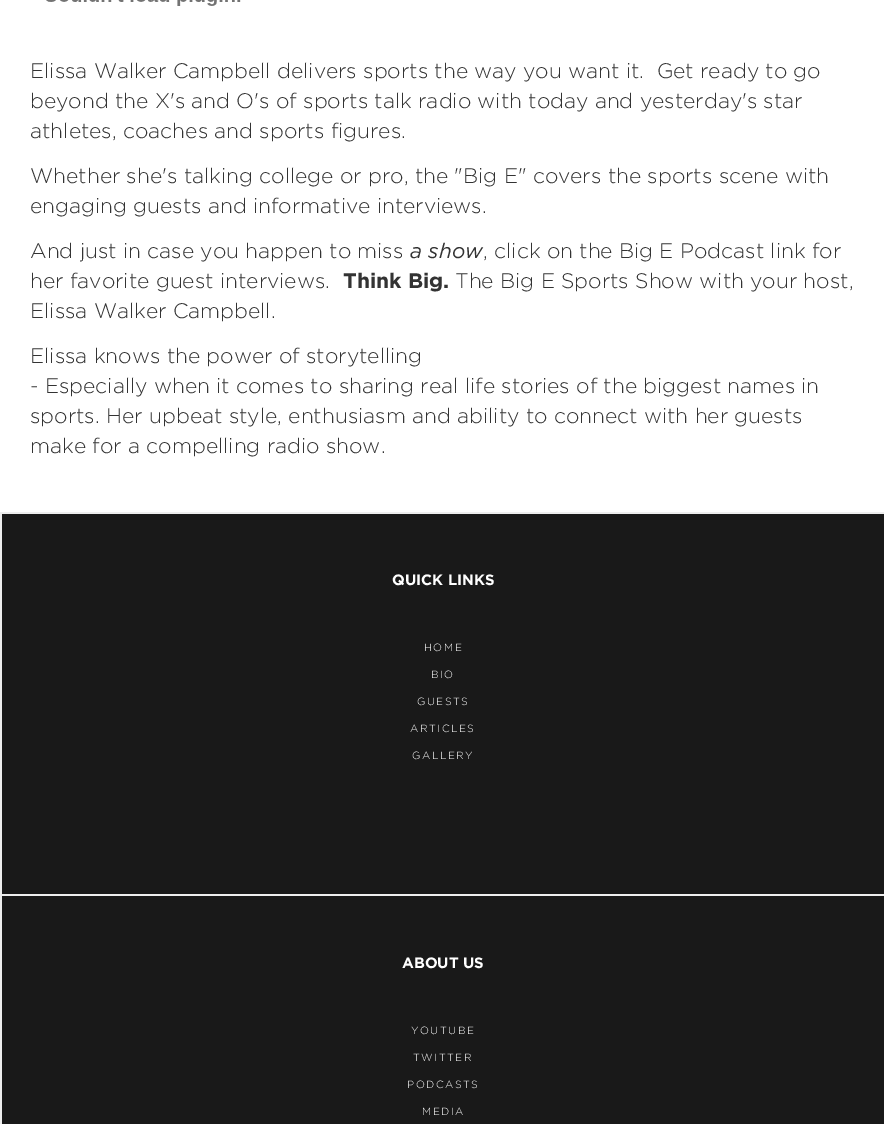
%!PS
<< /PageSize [884 1124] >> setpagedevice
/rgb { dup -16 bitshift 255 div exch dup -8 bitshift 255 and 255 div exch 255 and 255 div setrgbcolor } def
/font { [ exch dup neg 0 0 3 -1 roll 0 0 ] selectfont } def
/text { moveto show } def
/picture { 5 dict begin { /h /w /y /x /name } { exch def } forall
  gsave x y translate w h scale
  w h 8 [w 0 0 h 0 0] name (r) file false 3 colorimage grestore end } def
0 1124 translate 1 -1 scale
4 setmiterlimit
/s1 { /Gotham-Light 21 font 16#333333 rgb } def
/s2 { /Gotham-Italic 21 font 16#333333 rgb } def
/s3 { /Gotham-Bold 21 font 16#333333 rgb } def
/s4 { /Gotham-Bold 15 font 16#FFFFFF rgb } def
16#FFFFFF rgb
0 0 884 1124 rectfill
(pic1.raw) 46 0 195 6 picture
s1
(Elissa Walker Campbell delivers sports the way you want it.  Get ready to go) 30 78 text
(beyond the X's and O's of sports talk radio with today and yesterday's star) 30 108 text
(athletes, coaches and sports figures.) 30 138 text
(Whether she's talking college or pro, the "Big E" covers the sports scene with) 30 183 text
(engaging guests and informative interviews.) 30 213 text
(And just in case you happen to miss) 30 258 text
s2
(a show) 410 258 text
s1
(, click on the Big E Podcast link for) 483 258 text
(her favorite guest interviews.) 30 288 text
s3
(Think Big.) 343 288 text
s1
(The Big E Sports Show with your host,) 455 288 text
(Elissa Walker Campbell.) 30 318 text
(Elissa knows the power of storytelling) 30 363 text
(- Especially when it comes to sharing real life stories of the biggest names in) 30 393 text
(sports. Her upbeat style, enthusiasm and ability to connect with her guests) 30 423 text
(make for a compelling radio show.) 30 453 text
16#191919 rgb
2 514 882 610 rectfill
16#EDEDED rgb
0 512 884 2 rectfill
0 512 2 382 rectfill
s4
(QUICK LINKS) 392 585 text
/Gotham-Light 10.5 font
16#EFEFEF rgb
424 651 moveto 1.5 0 (HOME) ashow
431 678 moveto 1.5 0 (BIO) ashow
417 705 moveto 1.5 0 (GUESTS) ashow
410 732 moveto 1.5 0 (ARTICLES) ashow
412 759 moveto 1.5 0 (GALLERY) ashow
16#EDEDED rgb
0 894 884 2 rectfill
0 894 2 230 rectfill
s4
(ABOUT US) 402 968 text
/Gotham-Light 10.5 font
16#EFEFEF rgb
411 1034 moveto 1.5 0 (YOUTUBE) ashow
413 1061 moveto 1.5 0 (TWITTER) ashow
407 1088 moveto 1.5 0 (PODCASTS) ashow
422 1115 moveto 1.5 0 (MEDIA) ashow
showpage
